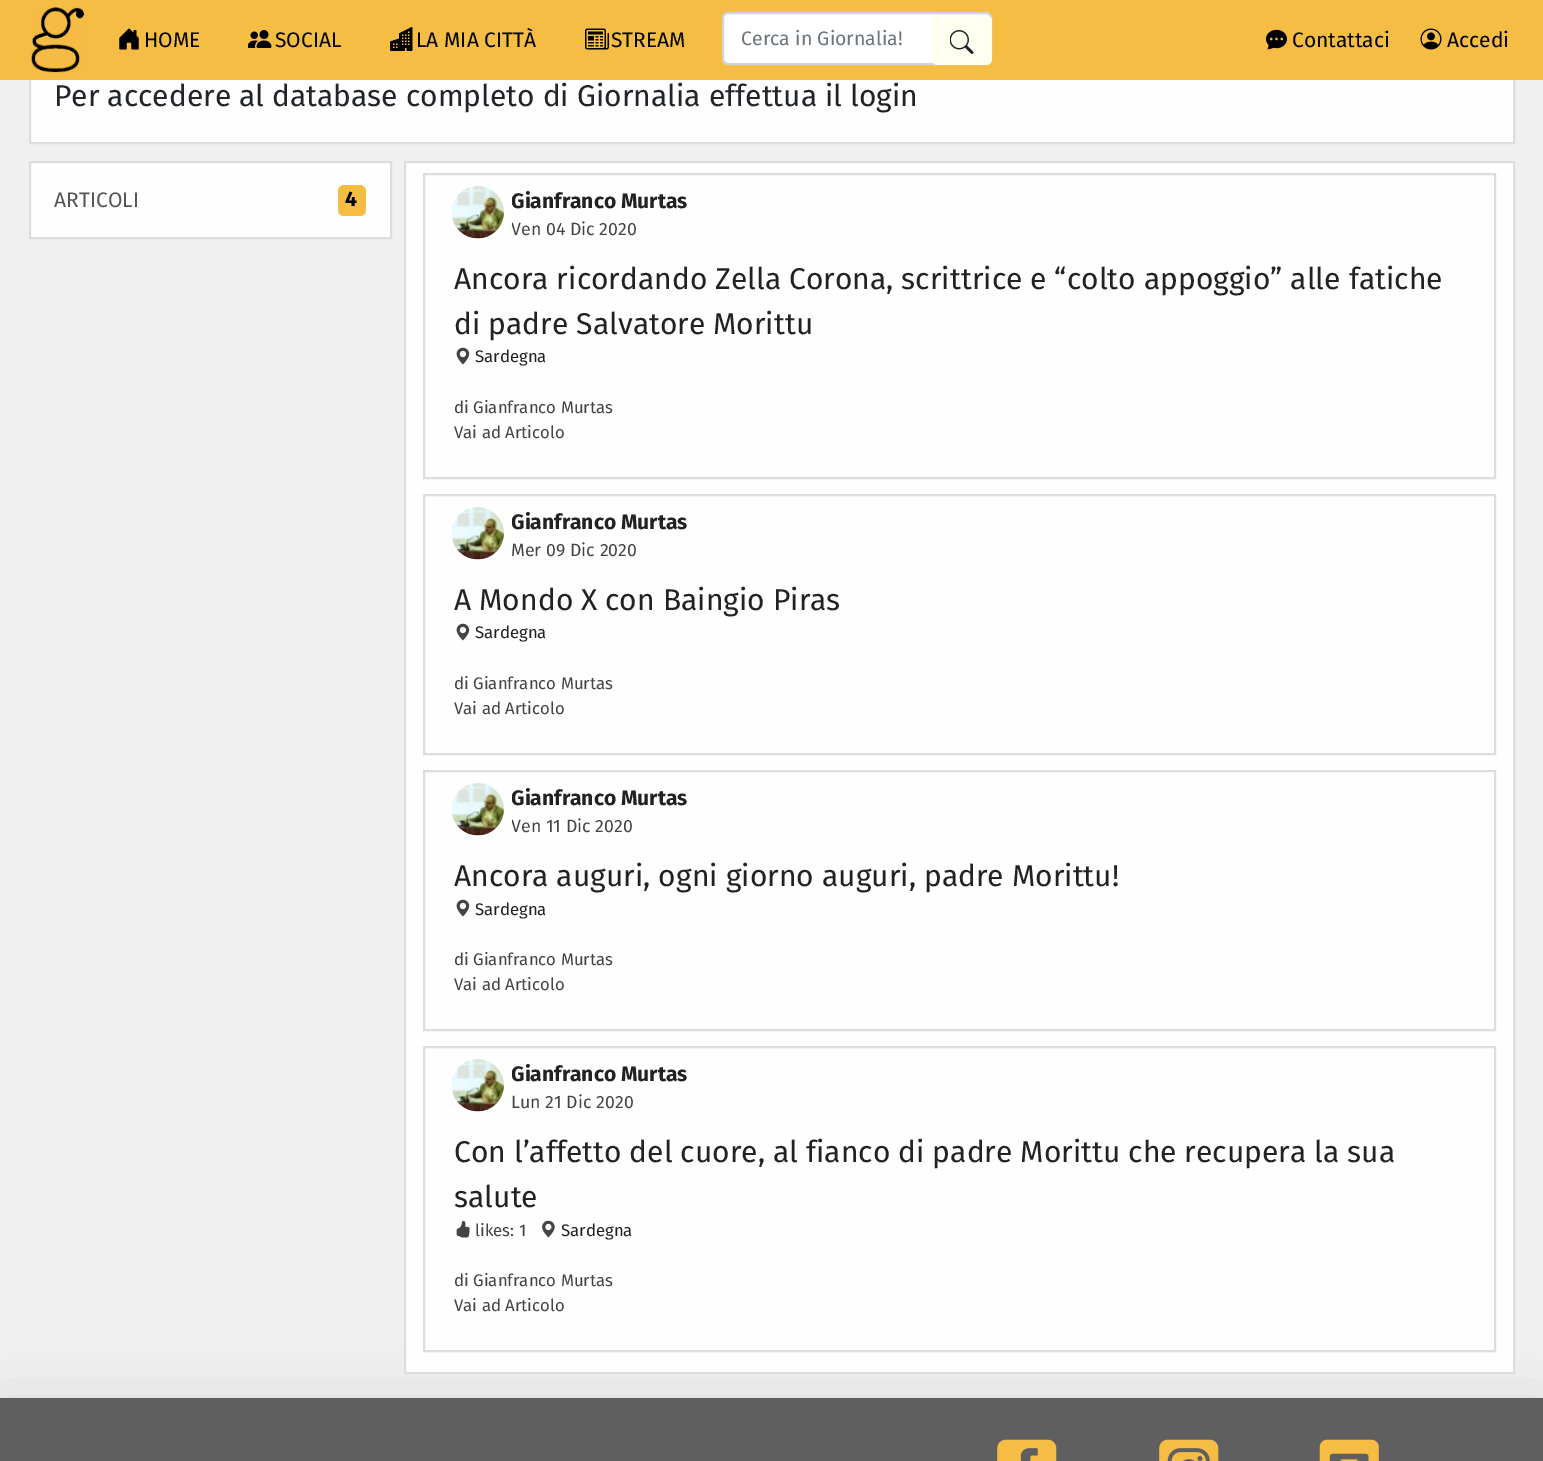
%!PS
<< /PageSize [1543 1461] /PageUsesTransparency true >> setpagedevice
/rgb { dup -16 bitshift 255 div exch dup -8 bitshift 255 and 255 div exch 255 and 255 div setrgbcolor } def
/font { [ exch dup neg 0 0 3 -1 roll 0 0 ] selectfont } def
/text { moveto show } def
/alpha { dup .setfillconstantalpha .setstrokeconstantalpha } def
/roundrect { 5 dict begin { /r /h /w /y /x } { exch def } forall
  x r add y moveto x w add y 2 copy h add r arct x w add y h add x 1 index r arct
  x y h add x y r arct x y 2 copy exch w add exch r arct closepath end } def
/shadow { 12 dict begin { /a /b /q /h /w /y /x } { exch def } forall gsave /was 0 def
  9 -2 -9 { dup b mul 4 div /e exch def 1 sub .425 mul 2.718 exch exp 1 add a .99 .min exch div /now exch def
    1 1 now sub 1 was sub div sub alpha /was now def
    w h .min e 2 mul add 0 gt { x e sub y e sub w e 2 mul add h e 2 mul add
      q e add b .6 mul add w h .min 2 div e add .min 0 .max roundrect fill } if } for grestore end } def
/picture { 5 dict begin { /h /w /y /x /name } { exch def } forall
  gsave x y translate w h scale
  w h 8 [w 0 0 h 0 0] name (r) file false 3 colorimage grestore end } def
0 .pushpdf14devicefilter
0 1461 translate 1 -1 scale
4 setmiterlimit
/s1 { /FiraSans-Regular 21 font 16#000000 rgb } def
/s2 { /FiraSans-Regular 19.5 font 16#6C757D rgb } def
/s3 { /FiraSans-Regular 30 font 16#212529 rgb } def
/s4 { /FiraSans-Regular 30 font 16#222222 rgb } def
/s5 { /FiraSans-Regular 21 font 16#555555 rgb } def
/s6 { /FiraSans-Bold 21 font 16#000000 rgb } def
/s7 { /FiraSans-Bold 21 font 16#222222 rgb } def
/s8 { /FiraSans-Regular 17.75 font 16#444444 rgb } def
/s9 { /FiraSans-Regular 16.75 font 16#222222 rgb } def
/s10 { /FiraSans-Regular 16.75 font 16#444444 rgb } def
16#F0F0F0 rgb
0 0 1543 1461 rectfill
16#FEFEFE rgb
31 80 1482 62 rectfill
16#DDDDDD rgb
2 setlinewidth
30 10 1484 133 rectstroke
16#F6BD44 rgb
0 0 1543 80 rectfill
(pic1.raw) 31 7 54 66 picture
(pic2.raw) 119 28 20 22 picture
s1
(HOME) 144 47 text
(pic3.raw) 248 30 24 18 picture
(SOCIAL) 275 47 text
(pic4.raw) 390 27 23 24 picture
(LA MIA CITTÀ) 416 47 text
(pic5.raw) 585 28 24 22 picture
(STREAM) 611 47 text
16#FFFFFF rgb
723 13 268 51 5 roundrect gsave fill grestore
16#CED4DA rgb
stroke
s2
(Cerca in Giornalia!) 741 45 text
16#FFFFF0 rgb
932 15 60 50 6 roundrect fill
(pic6.raw) 950 30 24 24 picture
(pic7.raw) 1266 29 21 21 picture
s1
(Contattaci) 1292 47 text
(pic8.raw) 1420 28 22 22 picture
(Accedi) 1447 47 text
s3
(Per accedere al database completo di Giornalia effettua il) 54 106 text
s4
(login) 850 106 text
16#FEFEFE rgb
30 162 moveto 391 162 lineto 391 238 lineto 30 238 lineto closepath gsave fill grestore
16#DDDDDD rgb
stroke
s5
(ARTICOLI) 54 207 text
16#F6BD44 rgb
338 185 28 31 6 roundrect fill
s6
(4) 345 206 text
0 1422 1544 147 0 36 0.18 shadow
16#FEFEFE rgb
405 162 moveto 1514 162 lineto 1514 1373 lineto 405 1373 lineto closepath gsave fill grestore
16#DDDDDD rgb
stroke
424 174 1071 304 rectstroke
(pic9.raw) 451 186 53 53 picture
gsave
512 186 177 59 rectclip
s7
(Gianfranco Murtas) 511 208 text
s8
(Ven 04 Dic 2020) 511 235 text
grestore
s4
(Ancora ricordando Zella Corona, scrittrice e “colto appoggio” alle fatiche) 454 289 text
(di padre Salvatore Morittu) 454 334 text
(pic10.raw) 456 347 14 18 picture
s9
(Sardegna) 475 362 text
s10
(di Gianfranco Murtas) 454 413 text
(Vai ad Articolo) 454 438 text
16#DDDDDD rgb
424 495 1071 259 rectstroke
(pic9.raw) 451 507 53 53 picture
gsave
512 507 177 59 rectclip
s7
(Gianfranco Murtas) 511 529 text
grestore
s8
(Mer 09 Dic 2020) 511 556 text
s4
(A Mondo X con Baingio Piras) 454 610 text
(pic10.raw) 456 623 14 18 picture
s9
(Sardegna) 475 638 text
s10
(di Gianfranco Murtas) 454 689 text
(Vai ad Articolo) 454 714 text
16#DDDDDD rgb
424 771 1071 259 rectstroke
(pic9.raw) 451 783 53 53 picture
gsave
512 783 177 59 rectclip
s7
(Gianfranco Murtas) 511 805 text
s8
(Ven 11 Dic 2020) 511 832 text
grestore
s4
(Ancora auguri, ogni giorno auguri, padre Morittu!) 454 886 text
(pic10.raw) 456 899 14 18 picture
s9
(Sardegna) 475 915 text
s10
(di Gianfranco Murtas) 454 965 text
(Vai ad Articolo) 454 990 text
16#DDDDDD rgb
424 1047 1071 304 rectstroke
(pic11.raw) 451 1059 53 53 picture
gsave
512 1059 177 59 rectclip
s7
(Gianfranco Murtas) 511 1081 text
grestore
s8
(Lun 21 Dic 2020) 511 1108 text
s4
(Con l’affetto del cuore, al fianco di padre Morittu che recupera la sua) 454 1162 text
(salute) 454 1207 text
(pic12.raw) 456 1221 14 17 picture
s10
(likes: 1) 475 1236 text
(pic13.raw) 542 1220 13 18 picture
s9
(Sardegna) 561 1236 text
s10
(di Gianfranco Murtas) 454 1286 text
(Vai ad Articolo) 454 1311 text
16#5F5F5F rgb
0 1398 1543 63 rectfill
(pic14.raw) 997 1439 60 22 picture
(pic15.raw) 1159 1439 60 22 picture
(pic16.raw) 1319 1439 60 22 picture
.poppdf14devicefilter showpage
